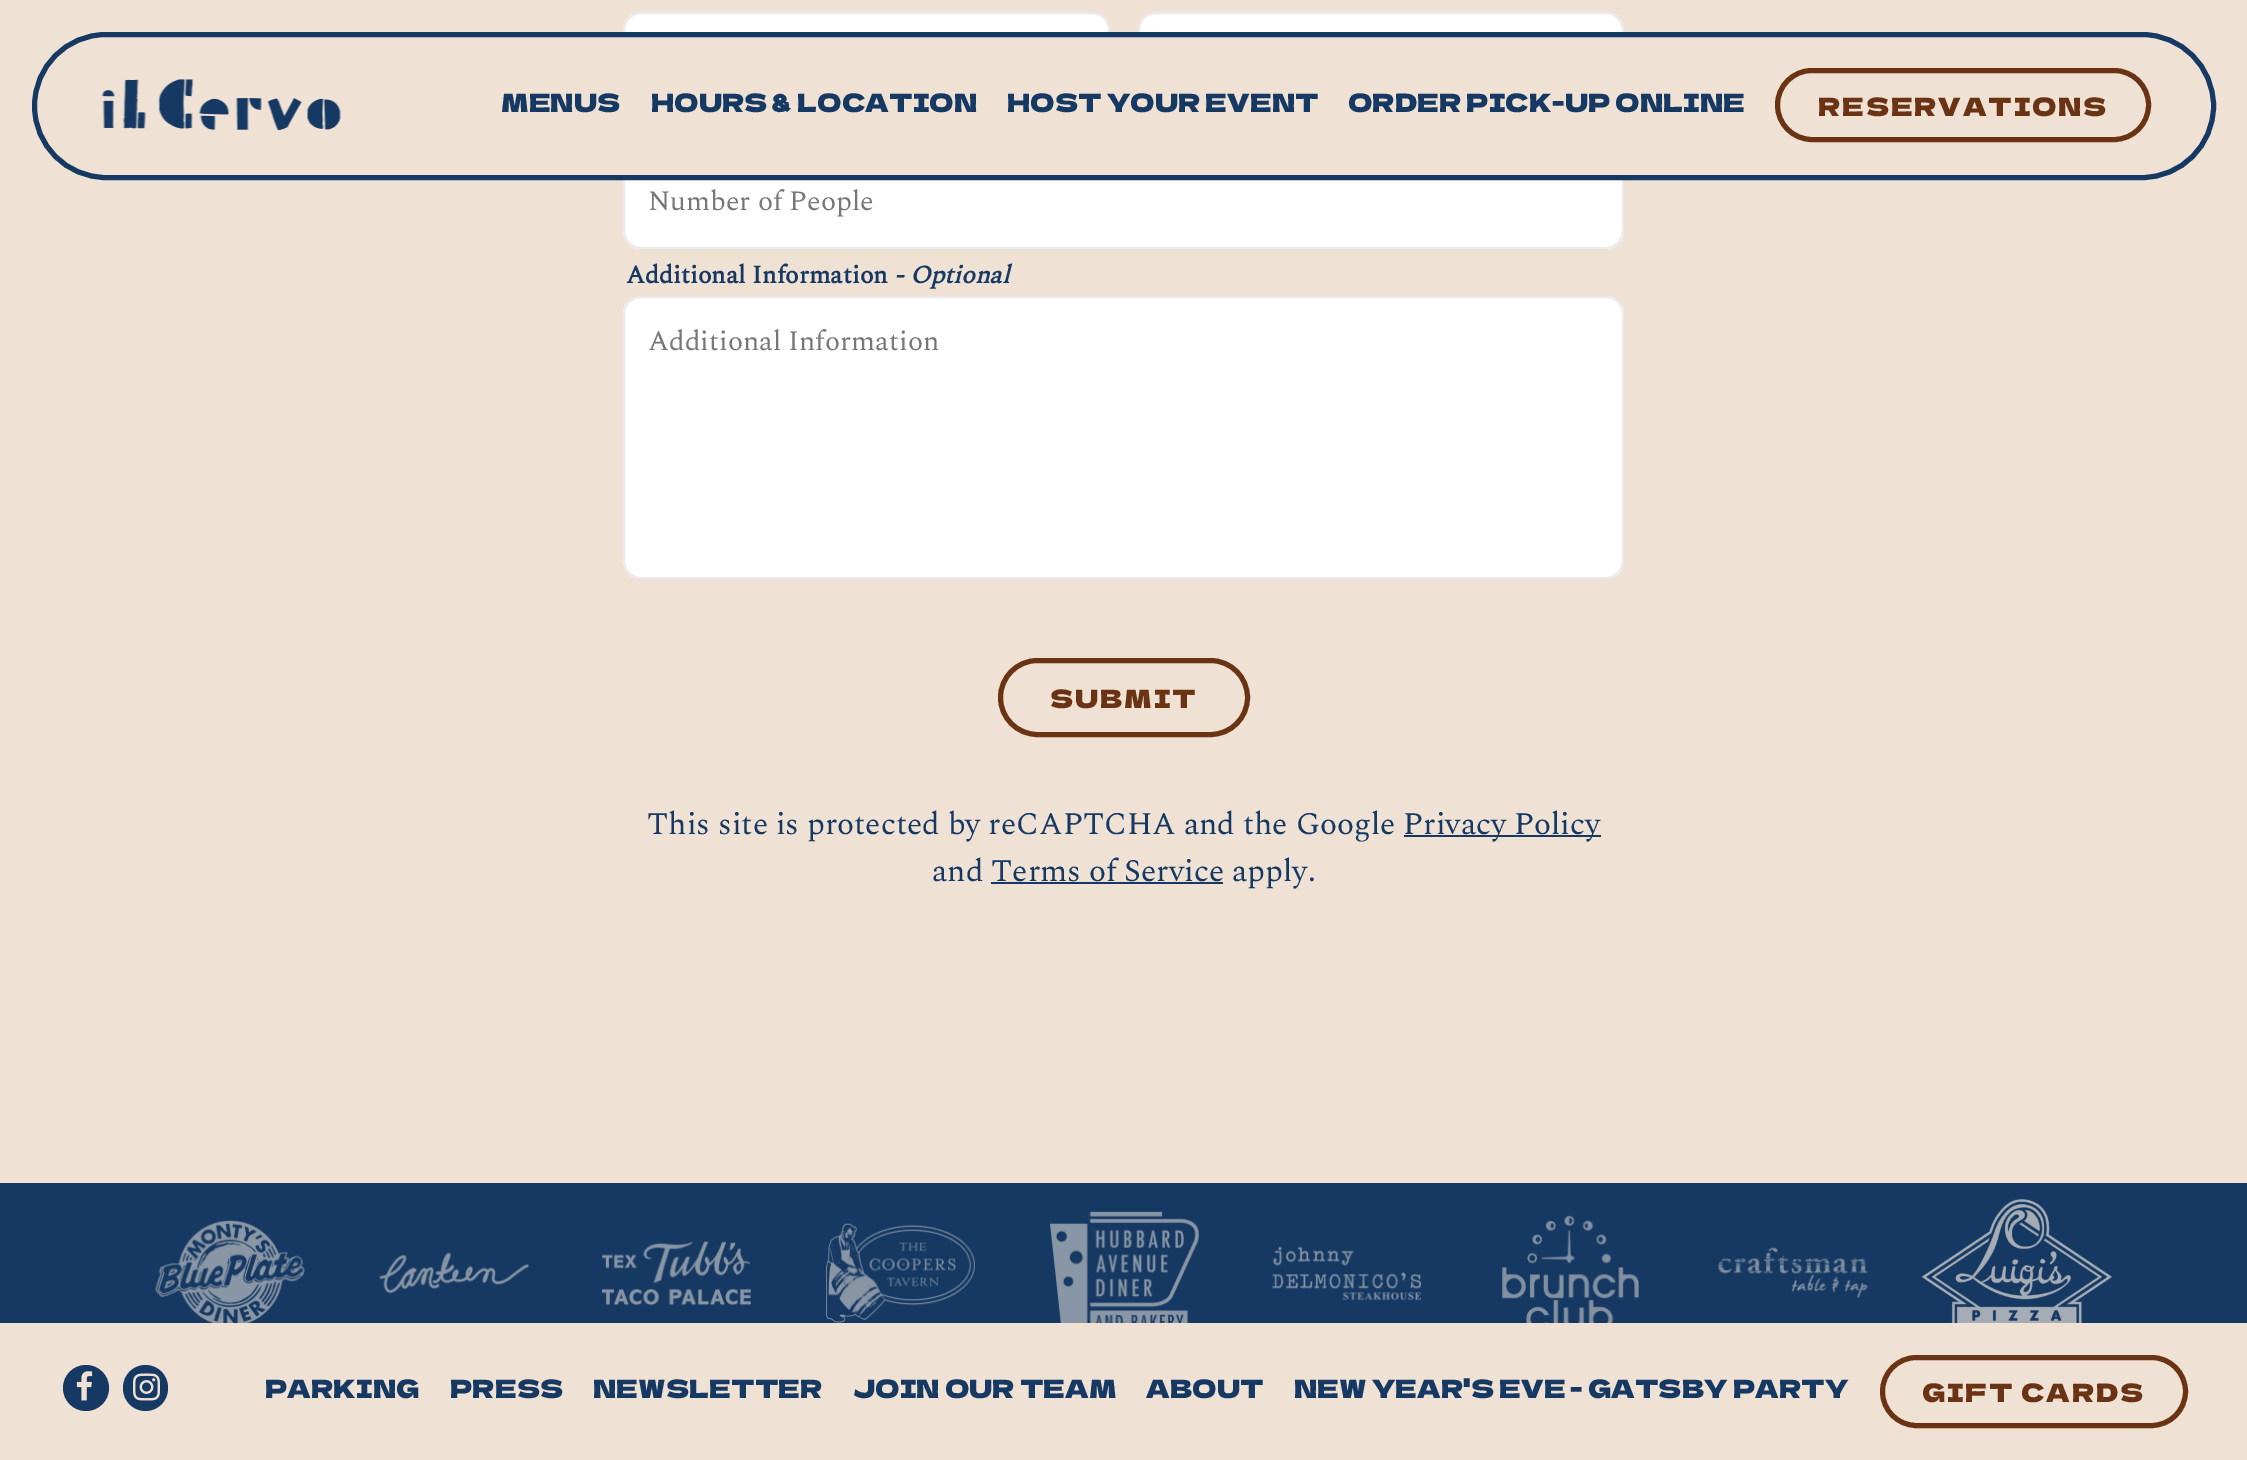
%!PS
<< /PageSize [2247 1460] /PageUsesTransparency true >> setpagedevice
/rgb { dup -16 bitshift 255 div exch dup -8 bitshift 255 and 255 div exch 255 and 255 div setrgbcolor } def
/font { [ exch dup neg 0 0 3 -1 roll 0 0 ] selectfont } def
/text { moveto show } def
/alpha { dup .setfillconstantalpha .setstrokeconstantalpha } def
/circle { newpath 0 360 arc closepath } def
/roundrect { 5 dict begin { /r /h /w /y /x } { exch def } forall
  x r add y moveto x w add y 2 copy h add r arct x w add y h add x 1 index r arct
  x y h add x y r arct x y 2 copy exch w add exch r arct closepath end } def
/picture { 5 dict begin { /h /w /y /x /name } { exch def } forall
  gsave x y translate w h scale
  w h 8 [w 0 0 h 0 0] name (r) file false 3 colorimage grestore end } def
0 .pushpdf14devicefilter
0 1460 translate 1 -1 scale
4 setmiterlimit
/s1 { /DelaGothicOne-Regular 25.2 font 16#163963 rgb } def
/s2 { /Spectral-Regular 28 font 16#787777 rgb } def
/s3 { /Spectral-Bold 25.2 font 16#163963 rgb } def
/s4 { /Spectral-BoldItalic 25.2 font 16#163963 rgb } def
/s5 { /Spectral-Regular 31.5 font 16#163963 rgb } def
16#EFE1D4 rgb
0 0 2247 1460 rectfill
16#FFFFFF rgb
623 12 487 95 18 roundrect fill
0.6 alpha
16#DDDDDD rgb
2 setlinewidth
624 13 485 93 17 roundrect stroke
1 alpha
16#FFFFFF rgb
1138 12 486 95 18 roundrect fill
0.6 alpha
16#DDDDDD rgb
1139 13 484 93 17 roundrect stroke
1 alpha
16#FFFFFF rgb
623 154 1001 95 18 roundrect fill
0.6 alpha
16#DDDDDD rgb
624 155 999 93 17 roundrect stroke
1 alpha
16#EFE1D4 rgb
34.5 34.5 2179 143 71.5 roundrect gsave fill grestore
16#163963 rgb
5 setlinewidth
stroke
(pic1.raw) 101 79 240 52 picture
s1
(MENUS) 501 112 text
(HOURS & LOCATION) 651 112 text
(HOST YOUR EVENT) 1007 112 text
(ORDER PICK-UP ONLINE) 1348 112 text
16#6A3414 rgb
1777.5 70.5 371 69 34.5 roundrect stroke
1818 116 moveto 1.75 0 (RESERVATIONS) ashow
s2
(Number of People) 648 210 text
s3
(Additional Information) 626 283 text
s4
(- Optional) 894 283 text
16#FFFFFF rgb
623 296 1001 283 18 roundrect fill
0.6 alpha
16#DDDDDD rgb
2 setlinewidth
624 297 999 281 17 roundrect stroke
1 alpha
s2
(Additional Information) 648 350 text
16#6A3414 rgb
5 setlinewidth
1000.5 660.5 247 74 37 roundrect stroke
/DelaGothicOne-Regular 25.2 font
1050 708 moveto 1.75 0 (SUBMIT) ashow
s5
(This site is protected by reCAPTCHA and the Google) 647 834 text
1404 835 197 2 rectfill
(Privacy Policy) 1403 834 text
(and Terms of Service apply.) 932 881 text
991 882 232 2 rectfill
0 1183 2247 140 rectfill
(pic2.raw) 155 1220 150 103 picture
(pic3.raw) 379 1252 150 42 picture
(pic4.raw) 602 1241 149 65 picture
(pic5.raw) 826 1223 149 100 picture
(pic6.raw) 1050 1211 149 112 picture
(pic7.raw) 1272 1246 149 55 picture
(pic8.raw) 1502 1215 137 108 picture
(pic9.raw) 1718 1247 150 52 picture
(pic10.raw) 1921 1199 192 124 picture
86 1388 23 circle fill
(pic11.raw) 76 1371 17 30 picture
123 1365 45 46 22.5 roundrect fill
(pic12.raw) 133 1373 27 28 picture
s1
(PARKING) 265 1398 text
(PRESS) 450 1398 text
(NEWSLETTER) 593 1398 text
(JOIN OUR TEAM) 853 1398 text
(ABOUT) 1146 1398 text
(NEW YEAR'S EVE - GATSBY PARTY) 1294 1398 text
16#6A3414 rgb
1882.5 1357.5 303 68 34 roundrect stroke
1922 1402 moveto 1.75 0 (GIFT CARDS) ashow
.poppdf14devicefilter showpage
